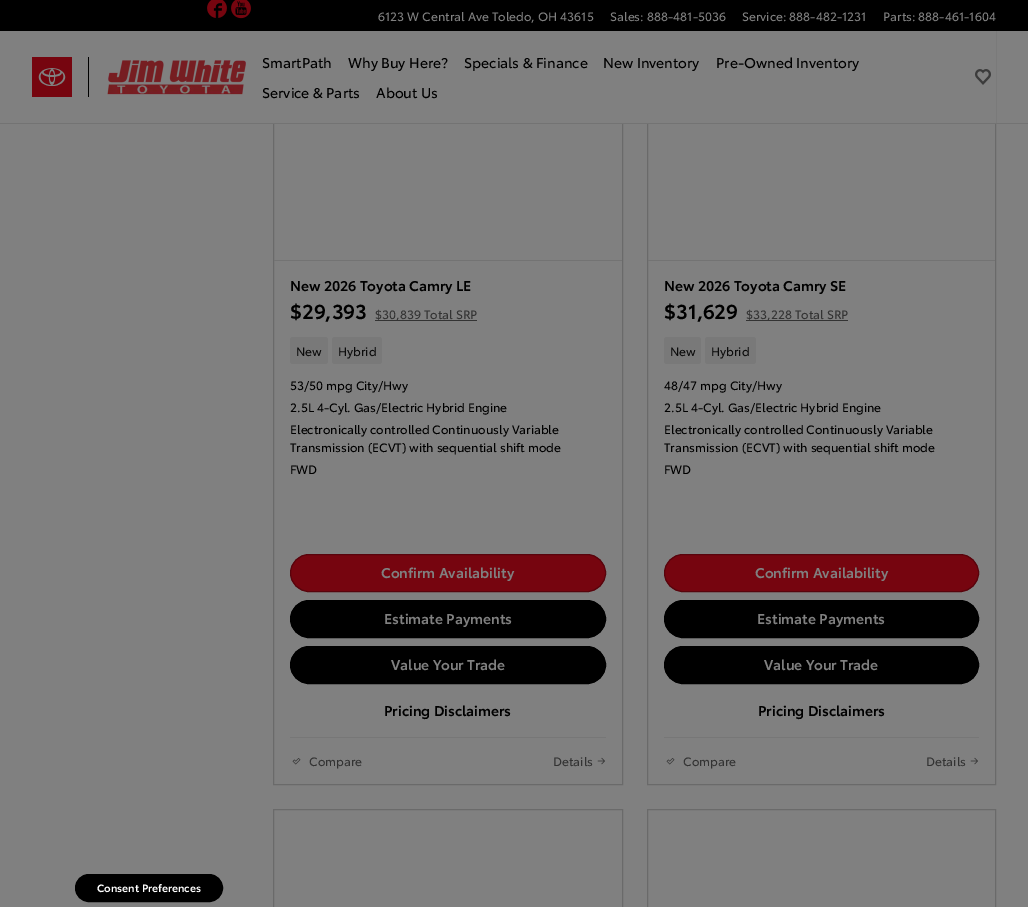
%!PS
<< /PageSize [1028 907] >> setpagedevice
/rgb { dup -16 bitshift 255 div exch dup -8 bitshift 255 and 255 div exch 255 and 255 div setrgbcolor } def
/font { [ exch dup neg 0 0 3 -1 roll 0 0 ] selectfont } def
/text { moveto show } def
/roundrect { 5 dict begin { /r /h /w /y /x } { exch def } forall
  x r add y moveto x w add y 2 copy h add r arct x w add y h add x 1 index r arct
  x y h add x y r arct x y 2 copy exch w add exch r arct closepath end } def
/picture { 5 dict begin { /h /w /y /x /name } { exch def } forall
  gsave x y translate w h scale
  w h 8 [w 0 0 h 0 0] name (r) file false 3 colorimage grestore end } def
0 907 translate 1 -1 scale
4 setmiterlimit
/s1 { /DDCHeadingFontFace-Regular 12 font 16#808080 rgb } def
/s2 { /DDCHeadingFontFace-Regular 14 font 16#000000 rgb } def
/s3 { /DDCHeadingFontFace-SemiBold 14 font 16#000000 rgb } def
/s4 { /DDCHeadingFontFace-SemiBold 20 font 16#000000 rgb } def
/s5 { /DDCHeadingFontFace-Regular 12 font 16#333333 rgb } def
/s6 { /DDCHeadingFontFace-Regular 12 font 16#0C0C0C rgb } def
/s7 { /DDCHeadingFontFace-Regular 12 font 16#000000 rgb } def
/s8 { /DDCHeadingFontFace-SemiBold 14 font 16#808080 rgb } def
/s9 { /DDCHeadingFontFace-SemiBold 10.5 font 16#FFFFFF rgb } def
16#808080 rgb
0 0 1028 907 rectfill
16#6A6A6A rgb
273.5 -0.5 349 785 rectstroke
647.5 -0.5 348 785 rectstroke
16#808080 rgb
273 31 723 92 rectfill
16#737373 rgb
0 123 1028 1 rectfill
16#000000 rgb
0 0 1028 31 rectfill
s1
(6123 W Central Ave Toledo, OH 43615) 378 21 text
(Sales: 888-481-5036) 610 21 text
(Service: 888-482-1231) 742 21 text
(Parts: 888-461-1604) 883 21 text
(pic1.raw) 207 0 20 18 picture
(pic2.raw) 231 0 20 19 picture
16#000000 rgb
88 57 1 40 rectfill
(pic3.raw) 32 57 40 40 picture
(pic4.raw) 107 60 139 35 picture
s2
(SmartPath) 262 68 text
(Why Buy Here?) 348 68 text
(Specials & Finance) 464 68 text
(New Inventory) 603 68 text
(Pre-Owned Inventory) 716 68 text
(Service & Parts) 262 98 text
(About Us) 376 98 text
(pic5.raw) 975 69 16 16 picture
16#737373 rgb
274 260 348 1 rectfill
s3
(New 2026 Toyota Camry LE) 290 291 text
s4
($29,393) 290 319 text
16#333333 rgb
375 320 102 1 rectfill
s5
($30,839 Total SRP) 375 319 text
16#797979 rgb
290 337 38 27 3 roundrect fill
s6
(New) 296 356 text
16#797979 rgb
332 337 50 27 3 roundrect fill
s6
(Hybrid) 338 356 text
s7
(53/50 mpg City/Hwy) 290 390 text
(2.5L 4-Cyl. Gas/Electric Hybrid Engine) 290 412 text
(Electronically controlled Continuously Variable) 290 434 text
(Transmission \(ECVT\) with sequential shift mode) 290 452 text
(FWD) 290 474 text
16#76050F rgb
290.5 554.5 315 37 18.5 roundrect gsave fill grestore
16#58040C rgb
stroke
s8
(Confirm Availability) 381 578 text
16#000000 rgb
290.5 600.5 315 37 18.5 roundrect gsave fill grestore
stroke
s8
(Estimate Payments) 384 624 text
16#000000 rgb
290.5 646.5 315 37 18.5 roundrect gsave fill grestore
stroke
s8
(Value Your Trade) 391 670 text
s3
(Pricing Disclaimers) 384 716 text
16#777777 rgb
290 737 316 1 rectfill
(pic6.raw) 292 758 9 7 picture
s5
(Compare) 309 766 text
(Details) 553 766 text
(pic7.raw) 597 757 8 8 picture
16#737373 rgb
648 260 347 1 rectfill
s3
(New 2026 Toyota Camry SE) 664 291 text
s4
($31,629) 664 319 text
16#333333 rgb
746 320 102 1 rectfill
s5
($33,228 Total SRP) 746 319 text
16#797979 rgb
664 337 37 27 3 roundrect fill
s6
(New) 670 356 text
16#797979 rgb
705 337 51 27 3 roundrect fill
s6
(Hybrid) 711 356 text
s7
(48/47 mpg City/Hwy) 664 390 text
(2.5L 4-Cyl. Gas/Electric Hybrid Engine) 664 412 text
(Electronically controlled Continuously Variable) 664 434 text
(Transmission \(ECVT\) with sequential shift mode) 664 452 text
(FWD) 664 474 text
16#76050F rgb
664.5 554.5 314 37 18.5 roundrect gsave fill grestore
16#58040C rgb
stroke
s8
(Confirm Availability) 755 578 text
16#000000 rgb
664.5 600.5 314 37 18.5 roundrect gsave fill grestore
stroke
s8
(Estimate Payments) 757 624 text
16#000000 rgb
664.5 646.5 314 37 18.5 roundrect gsave fill grestore
stroke
s8
(Value Your Trade) 764 670 text
s3
(Pricing Disclaimers) 758 716 text
16#777777 rgb
664 737 315 1 rectfill
(pic6.raw) 666 758 9 7 picture
s5
(Compare) 683 766 text
(Details) 926 766 text
(pic7.raw) 970 757 8 8 picture
16#6A6A6A rgb
273.5 809.5 349 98 rectstroke
647.5 809.5 348 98 rectstroke
16#000000 rgb
75.5 874.5 147 27 13.5 roundrect gsave fill grestore
stroke
s9
(Consent Preferences) 97 892 text
showpage
